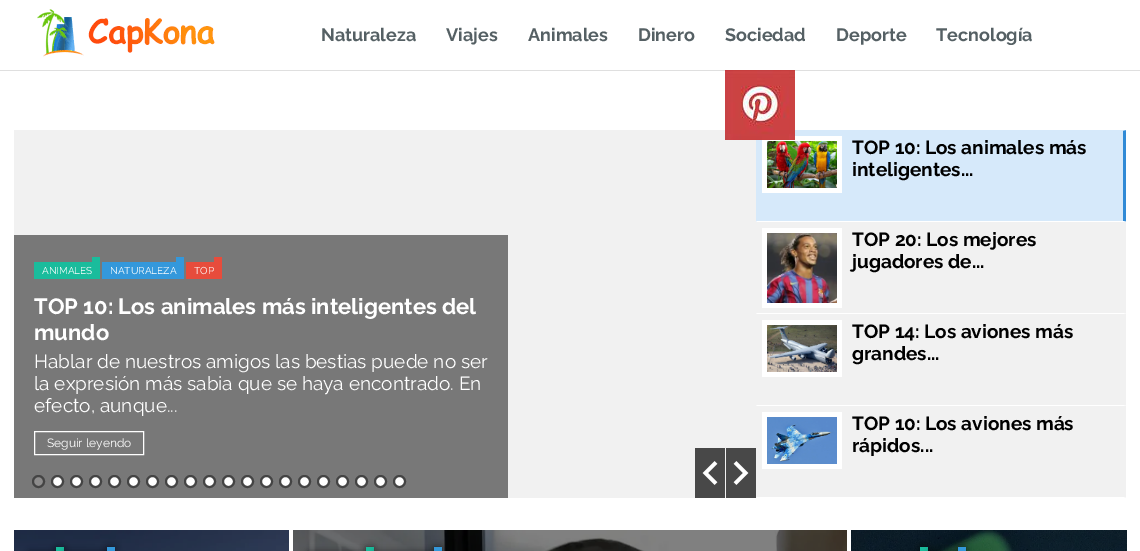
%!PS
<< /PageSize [1140 551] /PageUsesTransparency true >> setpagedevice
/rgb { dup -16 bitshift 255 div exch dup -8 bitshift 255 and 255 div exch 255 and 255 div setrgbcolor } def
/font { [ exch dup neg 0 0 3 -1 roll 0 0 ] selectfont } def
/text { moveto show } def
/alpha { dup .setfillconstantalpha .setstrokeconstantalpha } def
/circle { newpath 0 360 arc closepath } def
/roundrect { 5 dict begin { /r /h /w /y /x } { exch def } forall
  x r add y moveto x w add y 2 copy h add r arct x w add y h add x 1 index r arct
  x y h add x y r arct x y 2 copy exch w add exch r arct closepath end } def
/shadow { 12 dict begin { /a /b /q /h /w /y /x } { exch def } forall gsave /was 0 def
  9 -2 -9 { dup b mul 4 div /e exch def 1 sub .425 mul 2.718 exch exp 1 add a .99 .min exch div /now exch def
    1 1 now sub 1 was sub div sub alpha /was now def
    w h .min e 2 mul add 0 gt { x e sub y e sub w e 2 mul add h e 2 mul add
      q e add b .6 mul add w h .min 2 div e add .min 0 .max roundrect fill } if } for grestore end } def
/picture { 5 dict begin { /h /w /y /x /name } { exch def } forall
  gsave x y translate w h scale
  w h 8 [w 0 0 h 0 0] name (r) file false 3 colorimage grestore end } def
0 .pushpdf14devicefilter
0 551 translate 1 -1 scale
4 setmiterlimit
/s1 { /Raleway-Bold 18 font 16#556064 rgb } def
/s2 { /Raleway-Regular 10 font 16#FFFFFF rgb } def
/s3 { /Raleway-Bold 22 font 16#FFFFFF rgb } def
/s4 { /Raleway-Regular 19 font 16#FFFFFF rgb } def
/s5 { /Raleway-Regular 12 font 16#FFFFFF rgb } def
/s6 { /Raleway-Bold 19 font 16#000000 rgb } def
16#FFFFFF rgb
0 0 1140 551 rectfill
16#DFDFDF rgb
0 70 1140 1 rectfill
(pic1.raw) 37 9 178 48 picture
s1
(Naturaleza) 321 41 text
(Viajes) 446 41 text
(Animales) 528 41 text
(Dinero) 638 41 text
(Sociedad) 725 41 text
(Deporte) 836 41 text
(Tecnología) 936 41 text
16#F1F1F1 rgb
14 130 742 368 rectfill
16#D6E9FA rgb
756 130 370 92 rectfill
16#FFFFFF rgb
762 136 80 57 rectfill
(pic2.raw) 725 70 70 70 picture
16#787878 rgb
14 235 494 263 rectfill
16#1ABC9C rgb
34 262 58 17 rectfill
s2
(ANIMALES) 42 274 text
16#1ABC9C rgb
92 257 8 22 rectfill
16#3498DB rgb
102 262 74 17 rectfill
176 257 8 22 rectfill
s2
(NATURALEZA) 110 274 text
16#E74C3C rgb
186 262 28 17 rectfill
s2
(TOP) 194 274 text
16#E74C3C rgb
214 257 8 22 rectfill
s3
(TOP 10: Los animales más inteligentes del) 34 314 text
(mundo) 34 340 text
s4
(Hablar de nuestros amigos las bestias puede no ser) 34 368 text
(la expresión más sabia que se haya encontrado. En) 34 390 text
(efecto, aunque...) 34 412 text
34.5 431.5 109 23 rectstroke
s5
(Seguir leyendo) 47 447 text
16#8D8C8C rgb
38.5 481.5 5.5 circle gsave fill grestore
16#444444 rgb
2 setlinewidth
stroke
16#FFFFFF rgb
57.5 481.5 5.5 circle gsave fill grestore
16#444444 rgb
stroke
16#FFFFFF rgb
76.5 481.5 5.5 circle gsave fill grestore
16#444444 rgb
stroke
16#FFFFFF rgb
95.5 481.5 5.5 circle gsave fill grestore
16#444444 rgb
stroke
16#FFFFFF rgb
114.5 481.5 5.5 circle gsave fill grestore
16#444444 rgb
stroke
16#FFFFFF rgb
133.5 481.5 5.5 circle gsave fill grestore
16#444444 rgb
stroke
16#FFFFFF rgb
152.5 481.5 5.5 circle gsave fill grestore
16#444444 rgb
stroke
16#FFFFFF rgb
171.5 481.5 5.5 circle gsave fill grestore
16#444444 rgb
stroke
16#FFFFFF rgb
190.5 481.5 5.5 circle gsave fill grestore
16#444444 rgb
stroke
16#FFFFFF rgb
209.5 481.5 5.5 circle gsave fill grestore
16#444444 rgb
stroke
16#FFFFFF rgb
228.5 481.5 5.5 circle gsave fill grestore
16#444444 rgb
stroke
16#FFFFFF rgb
247.5 481.5 5.5 circle gsave fill grestore
16#444444 rgb
stroke
16#FFFFFF rgb
266.5 481.5 5.5 circle gsave fill grestore
16#444444 rgb
stroke
16#FFFFFF rgb
285.5 481.5 5.5 circle gsave fill grestore
16#444444 rgb
stroke
16#FFFFFF rgb
304.5 481.5 5.5 circle gsave fill grestore
16#444444 rgb
stroke
16#FFFFFF rgb
323.5 481.5 5.5 circle gsave fill grestore
16#444444 rgb
stroke
16#FFFFFF rgb
342.5 481.5 5.5 circle gsave fill grestore
16#444444 rgb
stroke
16#FFFFFF rgb
361.5 481.5 5.5 circle gsave fill grestore
16#444444 rgb
stroke
16#FFFFFF rgb
380.5 481.5 5.5 circle gsave fill grestore
16#444444 rgb
stroke
16#FFFFFF rgb
399.5 481.5 5.5 circle gsave fill grestore
16#444444 rgb
stroke
16#484848 rgb
695 448 30 50 rectfill
(pic3.raw) 702 461 16 24 picture
726 448 30 50 rectfill
(pic4.raw) 733 461 16 24 picture
16#F1F1F1 rgb
756 222 370 276 rectfill
gsave
756 130 370 368 rectclip
16#308AD6 rgb
1127 130 moveto 1127 222 lineto 1123 221 lineto 1123 131 lineto closepath fill
grestore
16#FFFFFF rgb
1127 222 moveto 756 222 lineto 757 221 lineto 1123 221 lineto closepath fill
(pic5.raw) 767 141 70 47 picture
s6
(TOP 10: Los animales más) 852 154 text
(inteligentes...) 852 176 text
16#FFFFFF rgb
1127 314 moveto 756 314 lineto 757 313 lineto 1123 313 lineto closepath fill
762 228 80 80 rectfill
(pic6.raw) 767 233 70 70 picture
s6
(TOP 20: Los mejores) 852 246 text
(jugadores de...) 852 268 text
16#FFFFFF rgb
1127 406 moveto 756 406 lineto 757 405 lineto 1123 405 lineto closepath fill
762 320 80 57 rectfill
(pic7.raw) 767 325 70 47 picture
s6
(TOP 14: Los aviones más) 852 338 text
(grandes...) 852 360 text
16#FFFFFF rgb
1127 498 moveto 756 498 lineto 757 497 lineto 1123 497 lineto closepath fill
762 412 80 57 rectfill
(pic8.raw) 767 417 70 47 picture
s6
(TOP 10: Los aviones más) 852 430 text
(rápidos...) 852 452 text
(pic9.raw) 14 530 275 21 picture
56 547 8 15 0 3.5 0.5 shadow
29 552 27 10 0 3.5 0.5 shadow
16#1ABC9C rgb
56 547 8 4 rectfill
16#000000 rgb
107 547 8 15 0 3.5 0.5 shadow
66 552 41 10 0 3.5 0.5 shadow
16#3498DB rgb
107 547 8 4 rectfill
(pic10.raw) 293 530 554 21 picture
16#000000 rgb
366 547 8 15 0 3.5 0.5 shadow
308 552 58 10 0 3.5 0.5 shadow
16#1ABC9C rgb
366 547 8 4 rectfill
16#000000 rgb
434 547 8 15 0 3.5 0.5 shadow
376 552 58 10 0 3.5 0.5 shadow
16#3498DB rgb
434 547 8 4 rectfill
(pic11.raw) 851 530 276 21 picture
16#000000 rgb
920 547 8 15 0 3.5 0.5 shadow
16#1ABC9C rgb
920 547 8 4 rectfill
16#000000 rgb
958 547 8 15 0 3.5 0.5 shadow
930 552 28 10 0 3.5 0.5 shadow
16#3498DB rgb
958 547 8 4 rectfill
.poppdf14devicefilter showpage
